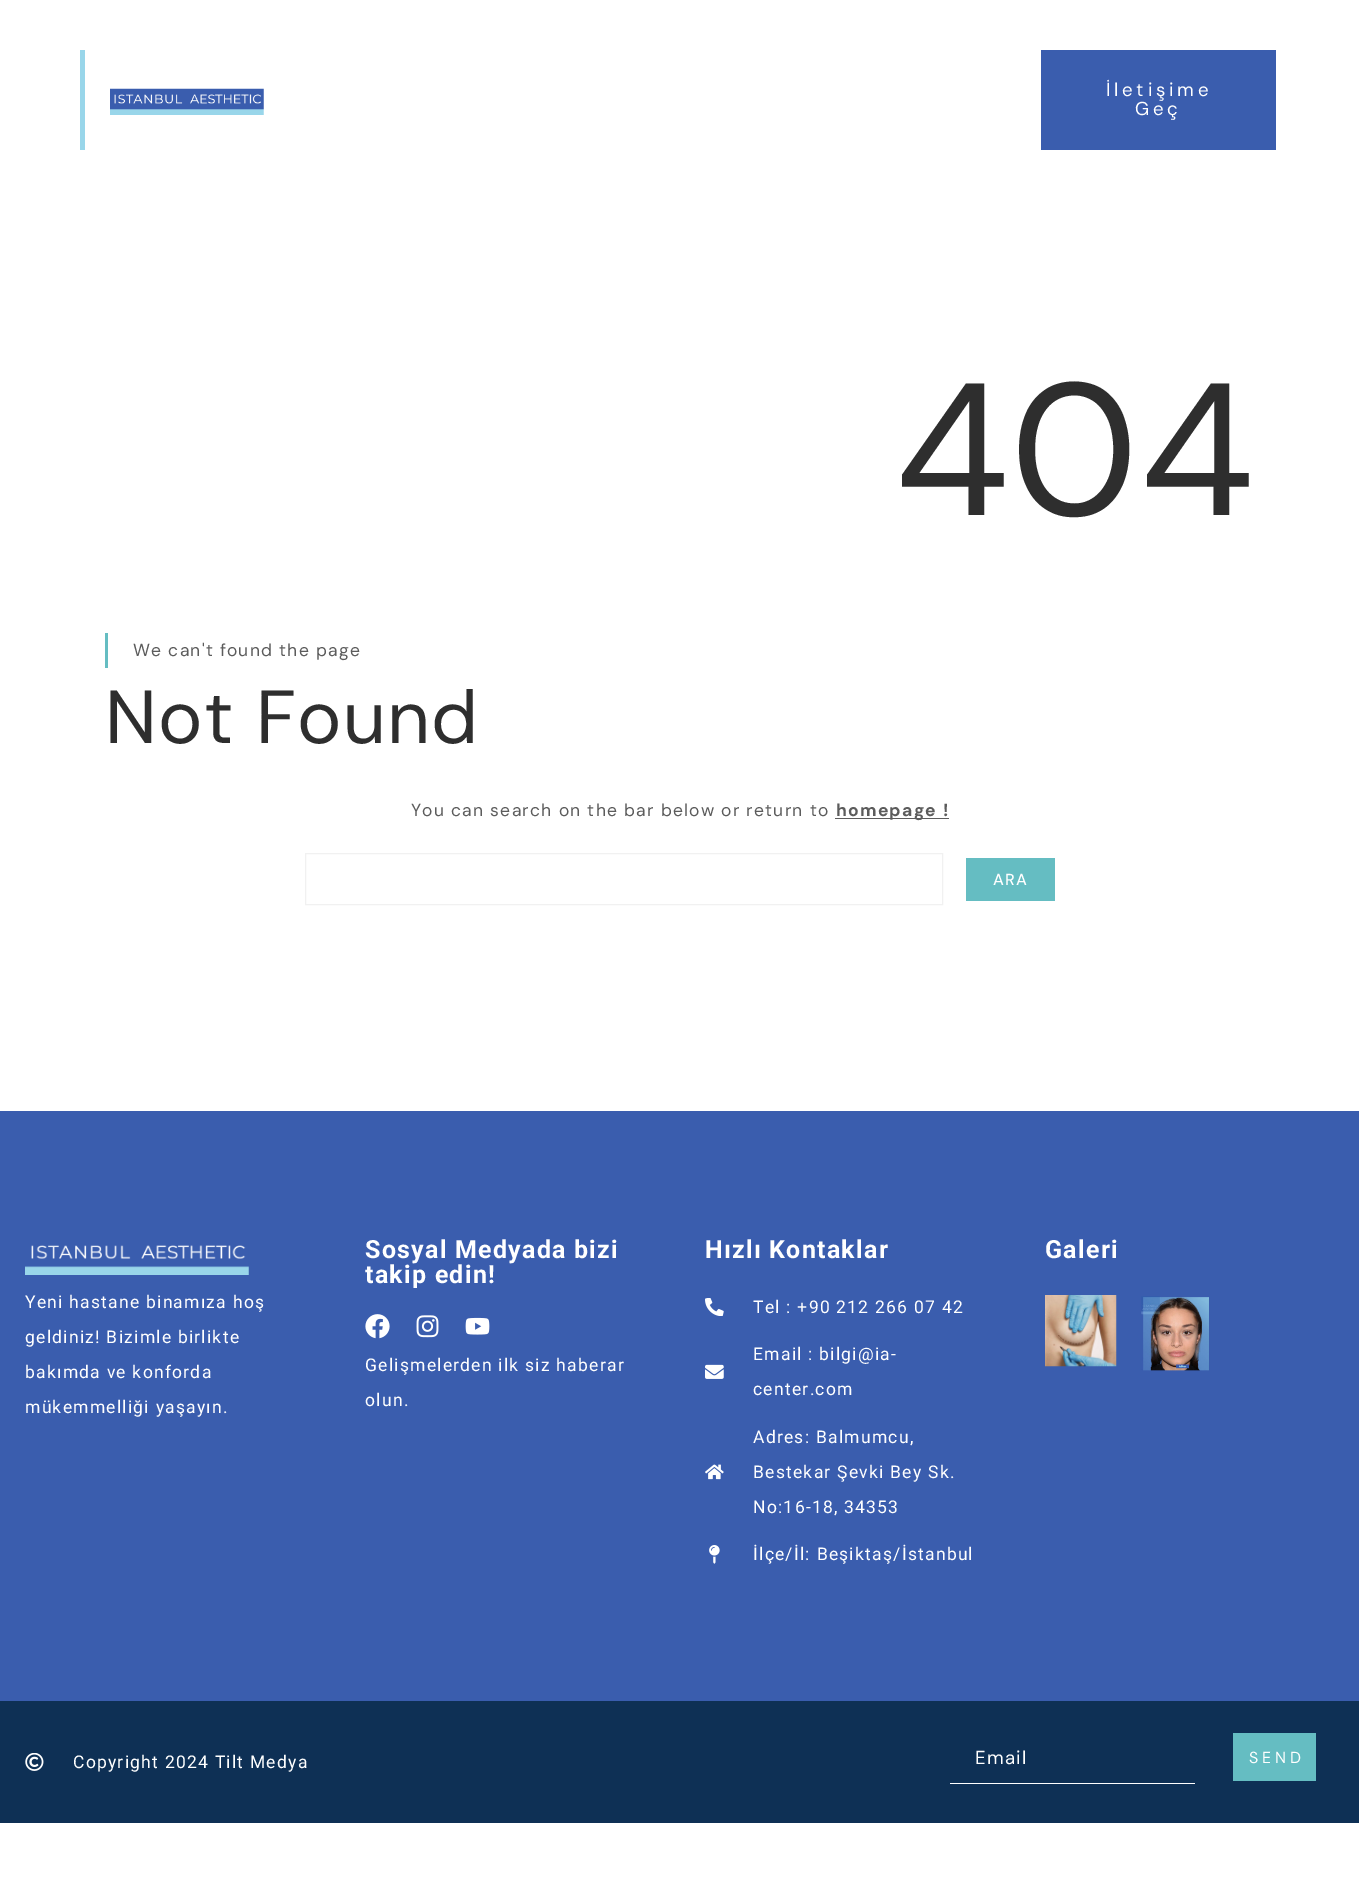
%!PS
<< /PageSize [1359 1886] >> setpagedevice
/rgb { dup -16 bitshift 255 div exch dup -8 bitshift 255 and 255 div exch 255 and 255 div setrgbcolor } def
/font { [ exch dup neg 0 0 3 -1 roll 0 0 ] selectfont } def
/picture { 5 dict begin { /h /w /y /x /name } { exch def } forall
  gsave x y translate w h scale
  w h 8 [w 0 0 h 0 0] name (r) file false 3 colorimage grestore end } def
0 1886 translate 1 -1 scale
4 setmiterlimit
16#FFFFFF rgb
0 0 1359 1886 rectfill
16#99D6EA rgb
80 50 5 100 rectfill
(pic1.raw) 110 88 154 27 picture
16#3A5DAE rgb
1041 50 235 100 rectfill
/DMSans-Regular 18.75 font
16#FFFFFF rgb
1106 96 moveto 3.75 0 (İletişime) ashow
1135 115 moveto 3.75 0 (Geç) ashow
/DMSans-Regular 188 font
16#2E2E2E rgb
895 515 moveto 1.25 0 (404) ashow
16#65BDC2 rgb
105 633 3 35 rectfill
/DMSans-Regular 17.5 font
16#5C5C5C rgb
133 656 moveto 1.25 0 (We can't found the page) ashow
/DMSans-Regular 75 font
16#2E2E2E rgb
105 743 moveto 1.25 0 (Not Found) ashow
/DMSans-Regular 17.5 font
16#5C5C5C rgb
411 816 moveto 1.25 0 (You can search on the bar below or return to) ashow
835 818 114 1 rectfill
/DMSans-Bold 17.5 font
836 816 moveto 1.25 0 (homepage !) ashow
16#F1F1F1 rgb
305.5 853.5 637 51 rectstroke
16#65BDC2 rgb
966 858 89 43 rectfill
/DMSans-Medium 16 font
16#FFFFFF rgb
993 885 moveto 1.25 0 (ARA) ashow
16#3A5DAE rgb
0 1111 1359 590 rectfill
/Roboto-Bold 25 font
16#FFFFFF rgb
365 1258 moveto 1.25 0 (Sosyal Medyada bizi) ashow
365 1283 moveto 1.25 0 (takip edin!) ashow
(pic2.raw) 365 1314 25 25 picture
(pic3.raw) 416 1315 23 23 picture
(pic4.raw) 465 1317 25 18 picture
/Roboto-Regular 17.5 font
365 1371 moveto 1.25 0 (Gelişmelerden ilk siz haberar) ashow
365 1406 moveto 1.25 0 (olun.) ashow
/Roboto-Bold 25 font
705 1258 moveto 1.25 0 (Hızlı Kontaklar) ashow
(pic5.raw) 705 1298 19 18 picture
/Roboto-Regular 17.5 font
753 1313 moveto 1.25 0 (Tel : +90 212 266 07 42) ashow
(pic6.raw) 705 1364 19 15 picture
753 1360 moveto 1.25 0 (Email : bilgi@ia-) ashow
753 1395 moveto 1.25 0 (center.com) ashow
(pic7.raw) 705 1464 19 16 picture
753 1443 moveto 1.25 0 (Adres: Balmumcu,) ashow
753 1478 moveto 1.25 0 (Bestekar Şevki Bey Sk.) ashow
753 1513 moveto 1.25 0 (No:16-18, 34353) ashow
(pic8.raw) 709 1545 11 19 picture
753 1560 moveto 1.25 0 (İlçe/İl: Beşiktaş/İstanbul) ashow
/Roboto-Bold 25 font
1045 1258 moveto 1.25 0 (Galeri) ashow
(pic9.raw) 1045 1295 72 72 picture
(pic10.raw) 1141 1296 68 75 picture
(pic11.raw) 25 1245 224 30 picture
/Roboto-Regular 17.5 font
25 1308 moveto 1.25 0 (Yeni hastane binamıza hoş) ashow
25 1343 moveto 1.25 0 (geldiniz! Bizimle birlikte) ashow
25 1378 moveto 1.25 0 (bakımda ve konforda) ashow
25 1413 moveto 1.25 0 (mükemmelliği yaşayın.) ashow
16#0E3055 rgb
0 1701 1359 122 rectfill
(pic12.raw) 25 1753 19 18 picture
16#FFFFFF rgb
73 1768 moveto 1.25 0 (Copyright 2024 Tilt Medya) ashow
950 1783 245 1 rectfill
/DMSans-Regular 18.75 font
975 1764 moveto 1.25 0 (Email) ashow
16#65BDC2 rgb
1233 1733 83 48 rectfill
/DMSans-Regular 16 font
16#FFFFFF rgb
1249 1763 moveto 3.75 0 (SEND) ashow
showpage
